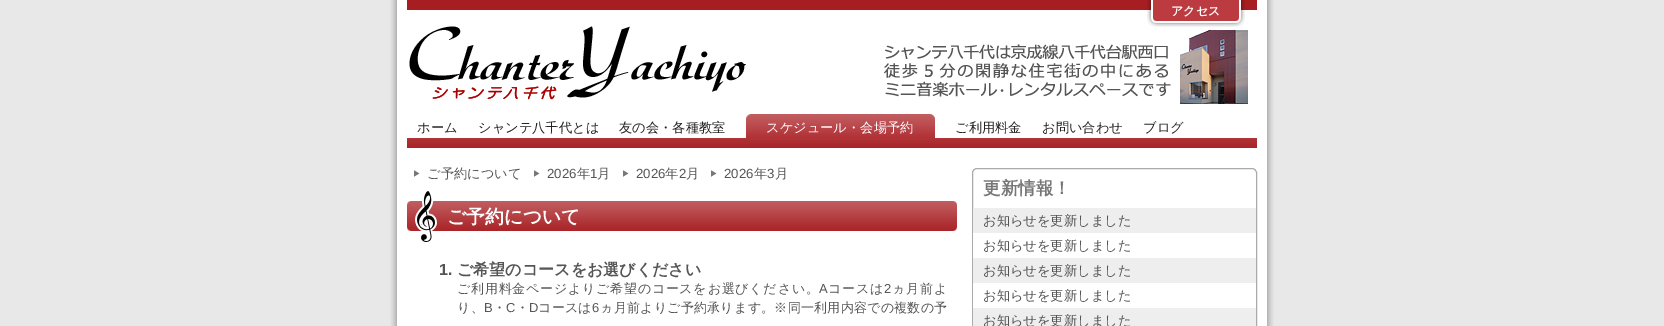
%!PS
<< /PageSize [1664 326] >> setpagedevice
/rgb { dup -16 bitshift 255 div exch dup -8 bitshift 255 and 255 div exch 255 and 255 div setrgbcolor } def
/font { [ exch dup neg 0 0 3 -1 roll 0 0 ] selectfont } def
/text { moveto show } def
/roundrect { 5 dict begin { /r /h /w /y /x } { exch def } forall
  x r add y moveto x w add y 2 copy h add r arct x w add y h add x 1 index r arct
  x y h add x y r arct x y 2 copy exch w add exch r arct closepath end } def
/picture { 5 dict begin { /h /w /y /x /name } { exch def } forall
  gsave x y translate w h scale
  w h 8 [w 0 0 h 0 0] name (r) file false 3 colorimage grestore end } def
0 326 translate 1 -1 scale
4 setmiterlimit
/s1 { /WenQuanYiZenHei-Bold 12 font 16#FFFFFF rgb } def
/s2 { /WenQuanYiZenHei-Medium 13.25 font 16#222222 rgb } def
/s3 { /WenQuanYiZenHei-Medium 13.25 font 16#FFFFFF rgb } def
/s4 { /WenQuanYiZenHei-Medium 13.25 font 16#555555 rgb } def
/s5 { /LiberationSans-Regular 13.25 font 16#555555 rgb } def
/s6 { /WenQuanYiZenHei-Bold 18.75 font 16#FFFFFF rgb } def
/s7 { /LiberationSans-Bold 16 font 16#555555 rgb } def
/s8 { /WenQuanYiZenHei-Bold 16 font 16#555555 rgb } def
/s9 { /WenQuanYiZenHei-Bold 17.5 font 16#777777 rgb } def
16#E8E8E8 rgb
0 0 1664 326 rectfill
(pic1.raw) 390 0 884 326 picture
(pic2.raw) 407 0 850 148 picture
(pic3.raw) 1147 0 98 27 picture
s1
(アクセス) 1171 15 text
(pic4.raw) 409 26 337 74 picture
(pic5.raw) 884 30 364 74 picture
s2
(ホーム) 417 132 text
(シャンテ八千代とは) 478 132 text
(友の会・各種教室) 619 132 text
(pic6.raw) 746 114 189 24 picture
(pic7.raw) 930 114 5 5 picture
s3
(スケジュール・会場予約) 766 132 text
s2
(ご利用料金) 955 132 text
(お問い合わせ) 1042 132 text
(ブログ) 1143 132 text
(pic8.raw) 414 170 6 7 picture
s4
(ご予約について) 427 178 text
(pic8.raw) 534 170 6 7 picture
s5
(2026) 547 178 text
s4
(年) 577 178 text
s5
(1) 590 178 text
s4
(月) 597 178 text
(pic8.raw) 623 170 6 7 picture
s5
(2026) 636 178 text
s4
(年) 665 178 text
s5
(2) 679 178 text
s4
(月) 686 178 text
(pic8.raw) 711 170 6 7 picture
s5
(2026) 724 178 text
s4
(年) 754 178 text
s5
(3) 767 178 text
s4
(月) 775 178 text
(pic9.raw) 407 191 550 51 picture
s6
(ご予約について) 447 223 text
s7
(1.) 439 275 text
s8
(ご希望のコースをお選びください) 457 275 text
/WenQuanYiZenHei-Medium 13 font
457 293 moveto 0.75 0 (ご利用料金ページよりご希望のコースをお選びください。) ashow
/LiberationSans-Regular 13 font
819 293 moveto 0.75 0 (A) ashow
/WenQuanYiZenHei-Medium 13 font
828 293 moveto 0.75 0 (コースは) ashow
/LiberationSans-Regular 13 font
884 293 moveto 0.75 0 (2) ashow
/WenQuanYiZenHei-Medium 13 font
892 293 moveto 0.75 0 (ヵ月前よ) ashow
457 312 moveto 0.25 0 (り、) ashow
/LiberationSans-Regular 13 font
484 312 moveto 0.25 0 (B) ashow
/WenQuanYiZenHei-Medium 13 font
493 312 moveto 0.25 0 (・) ashow
/LiberationSans-Regular 13 font
506 312 moveto 0.25 0 (C) ashow
/WenQuanYiZenHei-Medium 13 font
516 312 moveto 0.25 0 (・) ashow
/LiberationSans-Regular 13 font
529 312 moveto 0.25 0 (D) ashow
/WenQuanYiZenHei-Medium 13 font
538 312 moveto 0.25 0 (コースは) ashow
/LiberationSans-Regular 13 font
592 312 moveto 0.25 0 (6) ashow
/WenQuanYiZenHei-Medium 13 font
600 312 moveto 0.25 0 (ヵ月前よりご予約承ります。※同一利用内容での複数の予) ashow
16#AAAAAA rgb
972.5 168.5 284 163 4.5 roundrect stroke
s9
(更新情報！) 983 194 text
(pic10.raw) 973 208 283 118 picture
s4
(お知らせを更新しました) 983 225 text
(お知らせを更新しました) 983 250 text
(お知らせを更新しました) 983 275 text
(お知らせを更新しました) 983 300 text
(お知らせを更新しました) 983 325 text
showpage
